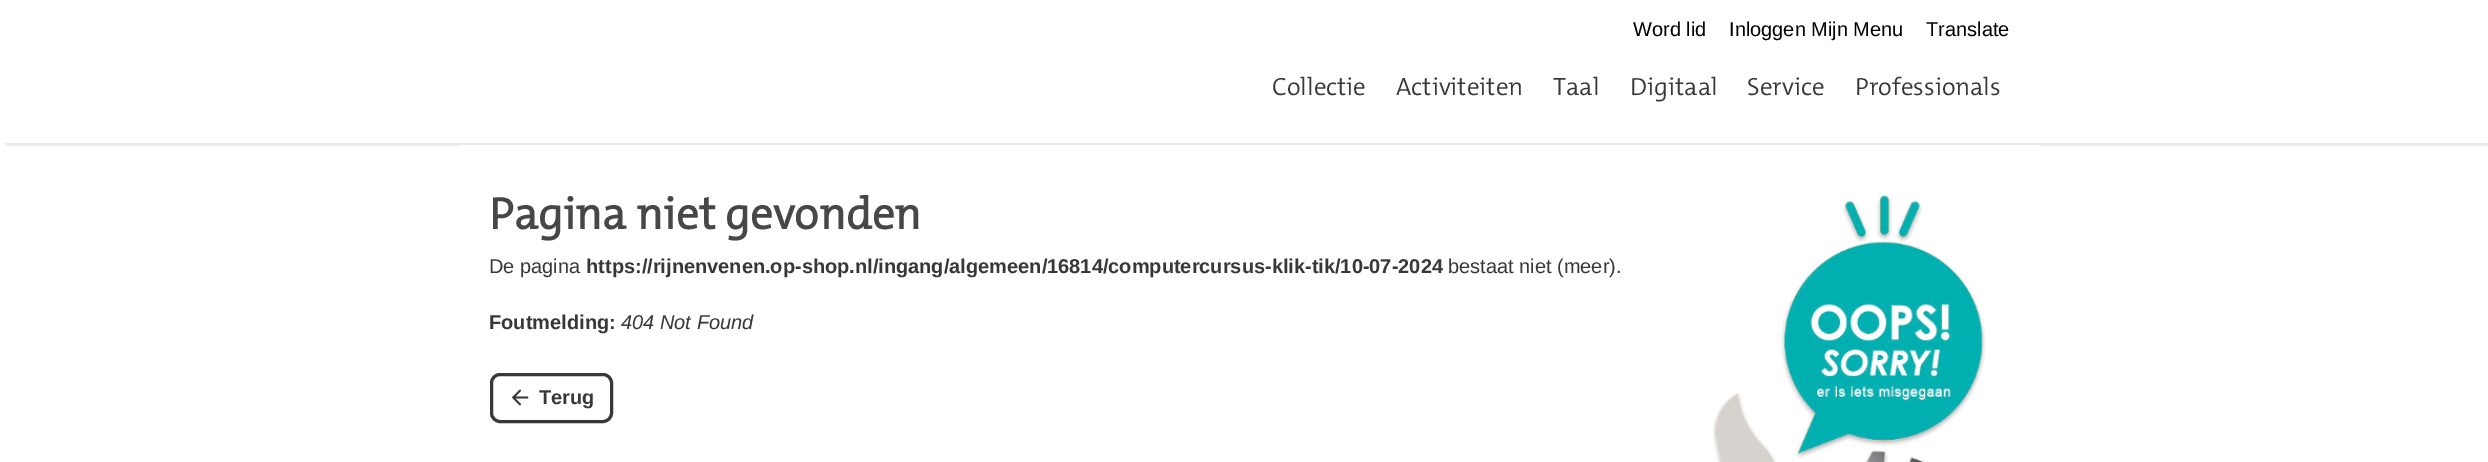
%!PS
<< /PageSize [2488 462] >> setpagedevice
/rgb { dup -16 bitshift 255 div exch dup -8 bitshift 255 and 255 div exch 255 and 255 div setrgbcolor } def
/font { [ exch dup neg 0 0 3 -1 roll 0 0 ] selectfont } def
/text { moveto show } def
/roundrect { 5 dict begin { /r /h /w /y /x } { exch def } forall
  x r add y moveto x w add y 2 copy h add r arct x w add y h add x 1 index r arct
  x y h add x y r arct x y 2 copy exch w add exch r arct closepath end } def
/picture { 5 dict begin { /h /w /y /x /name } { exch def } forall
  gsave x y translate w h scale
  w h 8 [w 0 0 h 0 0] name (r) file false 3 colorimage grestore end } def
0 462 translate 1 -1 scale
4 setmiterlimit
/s1 { /LiberationSans-Regular 20 font 16#000000 rgb } def
/s2 { /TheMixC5-Light 25 font 16#39373A rgb } def
/s3 { /TheMixC5-Bold 45 font 16#474747 rgb } def
/s4 { /LiberationSans-Regular 20 font 16#39373A rgb } def
/s5 { /LiberationSans-Bold 20 font 16#39373A rgb } def
/s6 { /LiberationSans-Italic 20 font 16#39373A rgb } def
16#FFFFFF rgb
0 0 2488 462 rectfill
16#EDEDED rgb
5 143 2483 3 rectfill
s1
(Word lid) 1633 36 text
(Inloggen Mijn Menu) 1729 36 text
(Translate) 1926 36 text
s2
(Collectie) 1272 95 text
(Activiteiten) 1396 95 text
(Taal) 1553 95 text
(Digitaal) 1630 95 text
(Service) 1747 95 text
(Professionals) 1855 95 text
16#FFFFFF rgb
460 145 1580 1 rectfill
(pic1.raw) 1713 195 273 267 picture
s3
(Pagina niet gevonden) 489 229 text
s4
(De pagina) 489 273 text
s5
(https://rijnenvenen.op-shop.nl/ingang/algemeen/16814/computercursus-klik-tik/10-07-2024) 586 273 text
s4
(bestaat niet \(meer\).) 1448 273 text
s5
(Foutmelding:) 489 329 text
s6
(404 Not Found) 621 329 text
3 setlinewidth
491.5 374.5 120 47 8.5 roundrect stroke
(pic2.raw) 512 389 17 17 picture
s5
(Terug) 539 404 text
showpage
